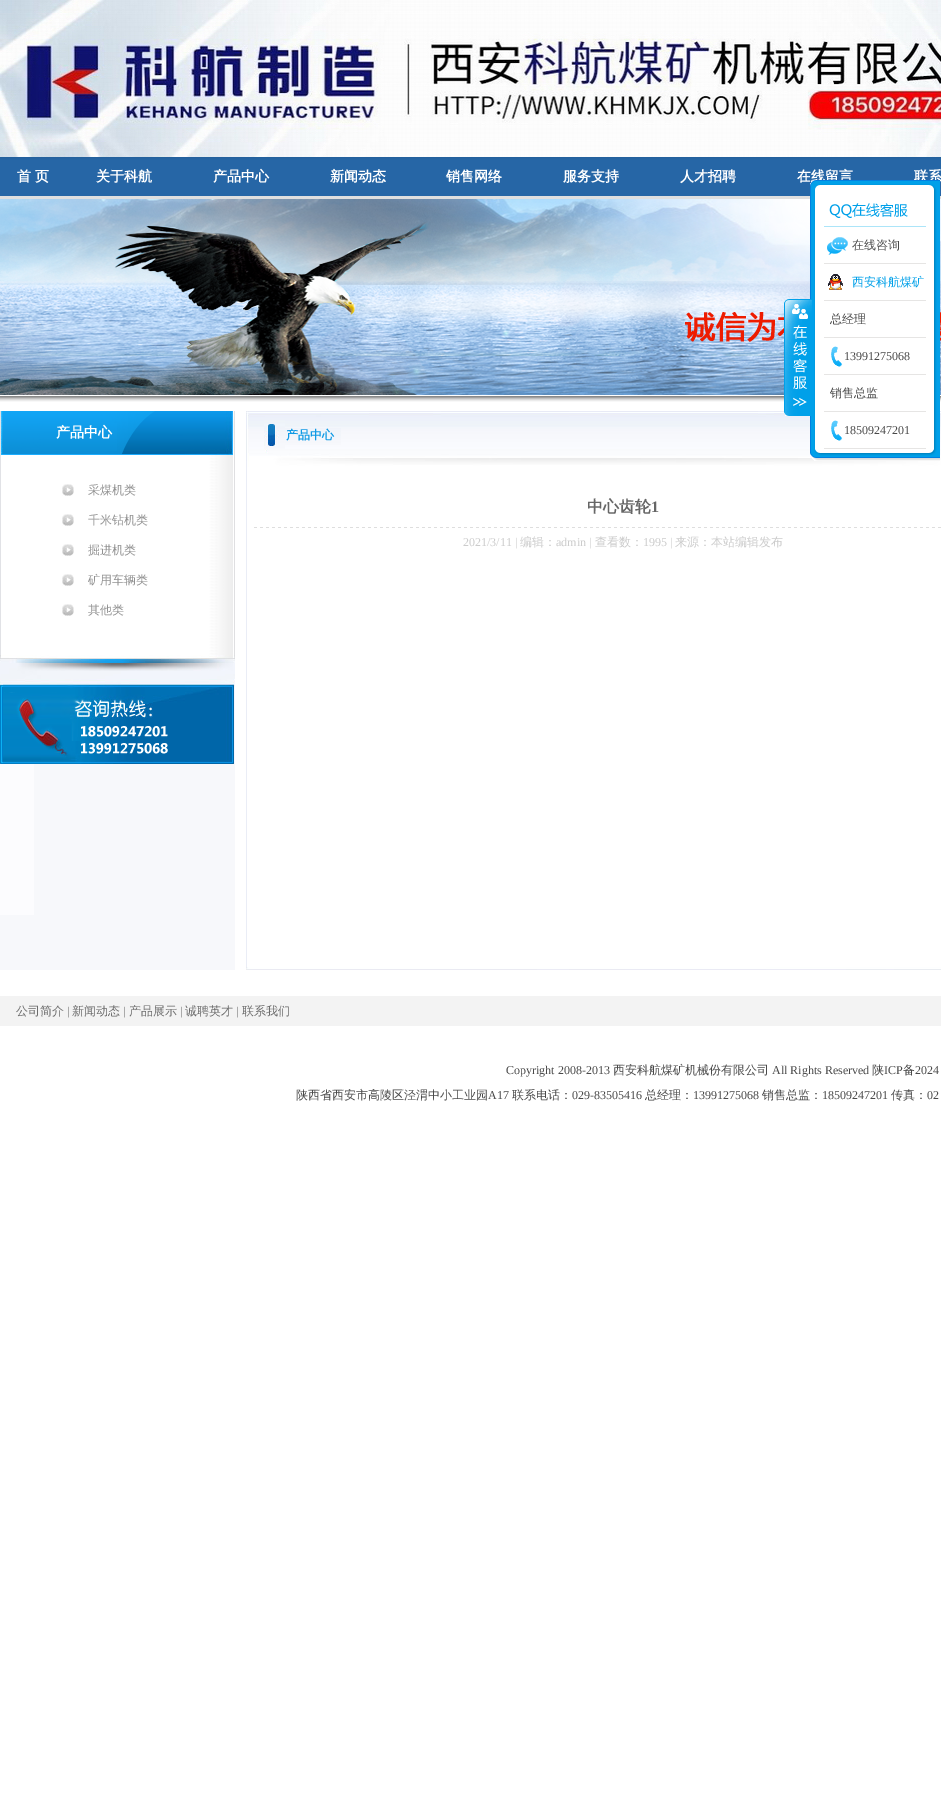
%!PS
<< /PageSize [941 1804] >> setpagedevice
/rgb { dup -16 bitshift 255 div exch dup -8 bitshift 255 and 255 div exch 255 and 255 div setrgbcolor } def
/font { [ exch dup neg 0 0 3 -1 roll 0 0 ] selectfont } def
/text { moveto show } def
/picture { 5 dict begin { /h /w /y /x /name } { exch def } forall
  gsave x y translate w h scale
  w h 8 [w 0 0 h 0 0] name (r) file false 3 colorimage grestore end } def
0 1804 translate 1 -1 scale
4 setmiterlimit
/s1 { /WenQuanYiZenHei-Bold 14 font 16#FFFFFF rgb } def
/s2 { /WenQuanYiZenHei-Medium 12 font 16#494949 rgb } def
/s3 { /WenQuanYiZenHei-Medium 12 font 16#00A0E9 rgb } def
/s4 { /LiberationSerif-Regular 12 font 16#494949 rgb } def
/s5 { /WenQuanYiZenHei-Medium 12 font 16#919191 rgb } def
/s6 { /WenQuanYiZenHei-Bold 12 font 16#0F9AE5 rgb } def
/s7 { /WenQuanYiZenHei-Bold 16 font 16#666666 rgb } def
/s8 { /LiberationSerif-Bold 16 font 16#666666 rgb } def
/s9 { /LiberationSerif-Regular 12 font 16#CCCCCC rgb } def
/s10 { /WenQuanYiZenHei-Medium 12 font 16#CCCCCC rgb } def
/s11 { /WenQuanYiZenHei-Medium 12 font 16#6C6C6C rgb } def
/s12 { /LiberationSerif-Regular 12 font 16#6C6C6C rgb } def
16#FFFFFF rgb
0 0 941 1804 rectfill
(pic1.raw) 0 0 941 157 picture
(pic2.raw) 0 157 941 39 picture
s1
(首) 17 181 text
(页) 35 181 text
(关于科航) 96 181 text
(产品中心) 213 181 text
(新闻动态) 330 181 text
(销售网络) 446 181 text
(服务支持) 563 181 text
(人才招聘) 680 181 text
(在线留言) 797 181 text
(联系) 914 181 text
16#DFDFDF rgb
0 196 941 3 rectfill
(pic3.raw) 0 199 941 196 picture
(pic4.raw) 0 396 941 6 picture
(pic19.raw) 246 411 695 56 picture
(pic8.raw) 810 190 130 259 picture
(pic5.raw) 784 299 28 117 picture
(pic6.raw) 810 449 130 12 picture
(pic7.raw) 810 180 130 10 picture
16#ACE5F9 rgb
824 226 102 1 rectfill
(pic9.raw) 829 203 79 15 picture
16#E6E5E4 rgb
824 263 102 1 rectfill
(pic10.raw) 827 237 21 18 picture
s2
(在线咨询) 852 249 text
16#E6E5E4 rgb
824 300 102 1 rectfill
(pic11.raw) 828 274 15 16 picture
s3
(西安科航煤矿) 852 286 text
16#E6E5E4 rgb
824 337 102 1 rectfill
s2
(总经理) 830 323 text
16#E6E5E4 rgb
824 374 102 1 rectfill
(pic12.raw) 831 346 12 21 picture
s4
(13991275068) 844 360 text
16#E6E5E4 rgb
824 411 102 1 rectfill
s2
(销售总监) 830 397 text
16#E6E5E4 rgb
824 448 102 1 rectfill
(pic12.raw) 831 420 12 21 picture
s4
(18509247201) 844 434 text
16#F7F8FB rgb
0 764 235 206 rectfill
(pic13.raw) 0 411 235 44 picture
s1
(产品中心) 56 437 text
(pic14.raw) 0 455 235 200 picture
(pic15.raw) 62 484 12 12 picture
s5
(采煤机类) 88 494 text
(pic15.raw) 62 514 12 12 picture
(千米钻机类) 88 524 text
(pic15.raw) 62 544 12 12 picture
(掘进机类) 88 554 text
(pic15.raw) 62 574 12 12 picture
(矿用车辆类) 88 584 text
(pic15.raw) 62 604 12 12 picture
(其他类) 88 614 text
(pic16.raw) 0 655 235 15 picture
(pic17.raw) 0 670 235 14 picture
(pic18.raw) 0 684 235 80 picture
16#FCFCFE rgb
0 764 34 151 rectfill
s6
(产品中心) 286 439 text
16#EAEDF6 rgb
246 467 1 500 rectfill
s7
(中心齿轮) 587 512 text
s8
(1) 651 512 text
(pic20.raw) 254 527 687 1 picture
s9
(2021/3/11 |) 463 546 text
s10
(编辑：) 520 546 text
s9
(admin |) 556 546 text
s10
(查看数：) 595 546 text
s9
(1995 |) 643 546 text
s10
(来源：本站编辑发布) 675 546 text
(pic21.raw) 246 967 695 3 picture
16#F3F3F3 rgb
0 996 941 30 rectfill
s11
(公司简介) 16 1015 text
s12
(|) 67 1015 text
s11
(新闻动态) 72 1015 text
s12
(|) 123 1015 text
s11
(产品展示) 129 1015 text
s12
(|) 180 1015 text
s11
(诚聘英才) 185 1015 text
s12
(|) 236 1015 text
s11
(联系我们) 242 1015 text
s4
(Copyright 2008-2013) 506 1074 text
s2
(西安科航煤矿机械份有限公司) 613 1074 text
s4
(All Rights Reserved) 772 1074 text
s2
(陕) 872 1074 text
s4
(ICP) 884 1074 text
s2
(备) 903 1074 text
s4
(2024) 915 1074 text
s2
(陕西省西安市高陵区泾渭中小工业园) 296 1099 text
s4
(A17) 488 1099 text
s2
(联系电话：) 512 1099 text
s4
(029-83505416) 572 1099 text
s2
(总经理：) 645 1099 text
s4
(13991275068) 693 1099 text
s2
(销售总监：) 762 1099 text
s4
(18509247201) 822 1099 text
s2
(传真：) 891 1099 text
s4
(02) 927 1099 text
showpage
